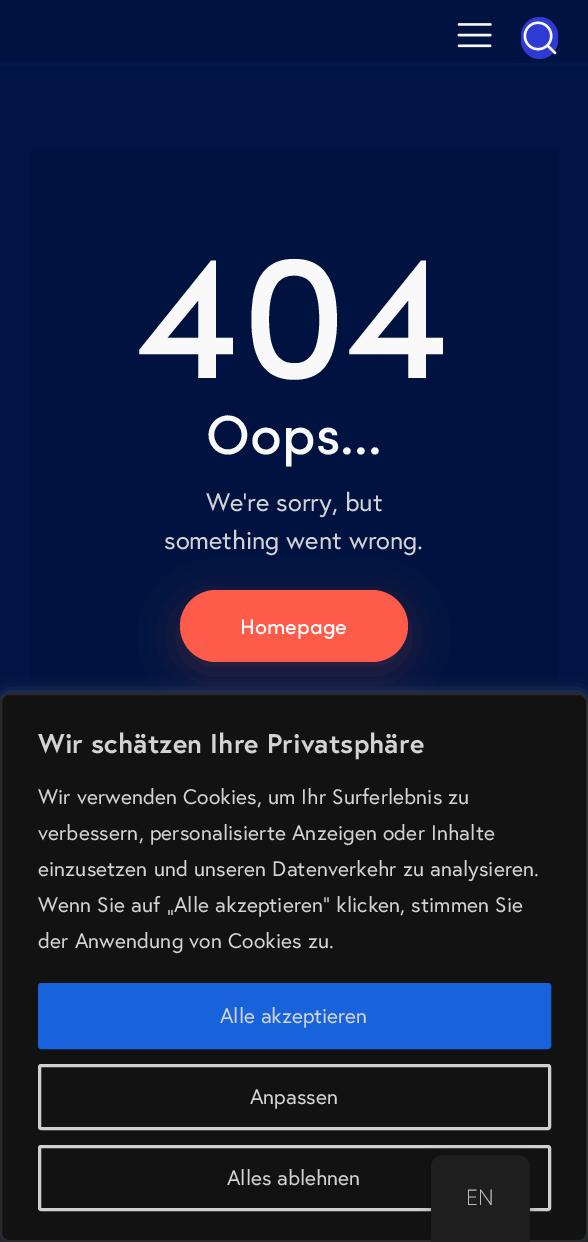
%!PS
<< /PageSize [588 1242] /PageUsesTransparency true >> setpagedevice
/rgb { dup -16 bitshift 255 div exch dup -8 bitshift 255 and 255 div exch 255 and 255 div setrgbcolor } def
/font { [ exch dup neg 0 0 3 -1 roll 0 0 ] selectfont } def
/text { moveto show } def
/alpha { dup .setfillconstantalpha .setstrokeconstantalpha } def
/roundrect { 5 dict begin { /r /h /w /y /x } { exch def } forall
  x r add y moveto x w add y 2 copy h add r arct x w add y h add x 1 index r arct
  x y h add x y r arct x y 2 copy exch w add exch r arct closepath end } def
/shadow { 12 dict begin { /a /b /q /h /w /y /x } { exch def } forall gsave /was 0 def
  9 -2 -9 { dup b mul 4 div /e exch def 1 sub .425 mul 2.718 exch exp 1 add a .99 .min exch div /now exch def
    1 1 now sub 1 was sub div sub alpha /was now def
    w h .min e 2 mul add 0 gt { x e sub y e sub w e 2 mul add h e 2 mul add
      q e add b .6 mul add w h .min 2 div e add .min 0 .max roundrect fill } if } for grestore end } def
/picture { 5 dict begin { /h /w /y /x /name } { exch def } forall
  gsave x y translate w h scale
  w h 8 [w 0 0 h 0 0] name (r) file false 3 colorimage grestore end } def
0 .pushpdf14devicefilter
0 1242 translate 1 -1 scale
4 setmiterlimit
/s1 { /Sofia-Medium 180 font 16#F9F9F9 rgb } def
/s2 { /Sofia-Medium 55.5 font 16#F9F9F9 rgb } def
/s3 { /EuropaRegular-Regular 25.5 font 16#D2D3D5 rgb } def
/s4 { /Sofia-Medium 21 font 16#FFFFFF rgb } def
/s5 { /EuropaRegular-Regular 21 font 16#D2D3D5 rgb } def
16#001445 rgb
0 0 588 1242 rectfill
16#001340 rgb
0 0 588 63 rectfill
16#001751 rgb
0 63 588 2 rectfill
(pic1.raw) 457 23 35 25 picture
16#2F39D3 rgb
521 17 37 42 18.5 roundrect fill
(pic2.raw) 523 21 34 34 picture
16#001340 rgb
30 149 528 544 rectfill
s1
(404) 137 378 text
s2
(Oops...) 206 454 text
s3
(We're sorry, but) 206 511 text
(something went wrong.) 164 549 text
16#FF5B4A rgb
180 600 228 72 36 19 0.2 shadow
180 590 228 72 36 roundrect fill
s4
(Homepage) 240 634 text
16#171A21 rgb
0 1233 588 9 rectfill
16#ACABAB rgb
0 692 588 549 9 7.5 0.3 shadow
16#121212 rgb
1 694 586 547 8 roundrect gsave fill grestore
16#2A2A2A rgb
2 setlinewidth
stroke
/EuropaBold-Bold 27 font
16#D2D3D5 rgb
38 753 moveto 0.15 0 (Wir schätzen Ihre Privatsphäre) ashow
/EuropaRegular-Regular 21 font
38 804 moveto 0.15 0 (Wir verwenden Cookies, um Ihr Surferlebnis zu) ashow
38 840 moveto 0.15 0 (verbessern, personalisierte Anzeigen oder Inhalte) ashow
38 876 moveto 0.15 0 (einzusetzen und unseren Datenverkehr zu analysieren.) ashow
38 912 moveto 0.15 0 (Wenn Sie auf „Alle akzeptieren" klicken, stimmen Sie) ashow
38 948 moveto 0.15 0 (der Anwendung von Cookies zu.) ashow
16#1863DC rgb
39.5 984.5 510 63 1.5 roundrect gsave fill grestore
3 setlinewidth
stroke
s5
(Alle akzeptieren) 220 1023 text
16#D0D0D0 rgb
39.5 1065.5 510 63 1.5 roundrect stroke
s5
(Anpassen) 250 1104 text
16#D0D0D0 rgb
39.5 1146.5 510 63 1.5 roundrect stroke
s5
(Alles ablehnen) 227 1185 text
16#000000 rgb
431 1155 99 87 12 6 0.25 shadow
16#1E1E1E rgb
443 1155 moveto 518 1155 lineto 524.5 1155 530 1160.5 530 1167 curveto 530 1242 lineto 431 1242 lineto 431 1167 lineto 431 1160.5 436.5 1155 443 1155 curveto closepath fill
/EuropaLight-Light 22 font
16#BDBDBD rgb
466 1205 moveto 0.15 0 (EN) ashow
.poppdf14devicefilter showpage
